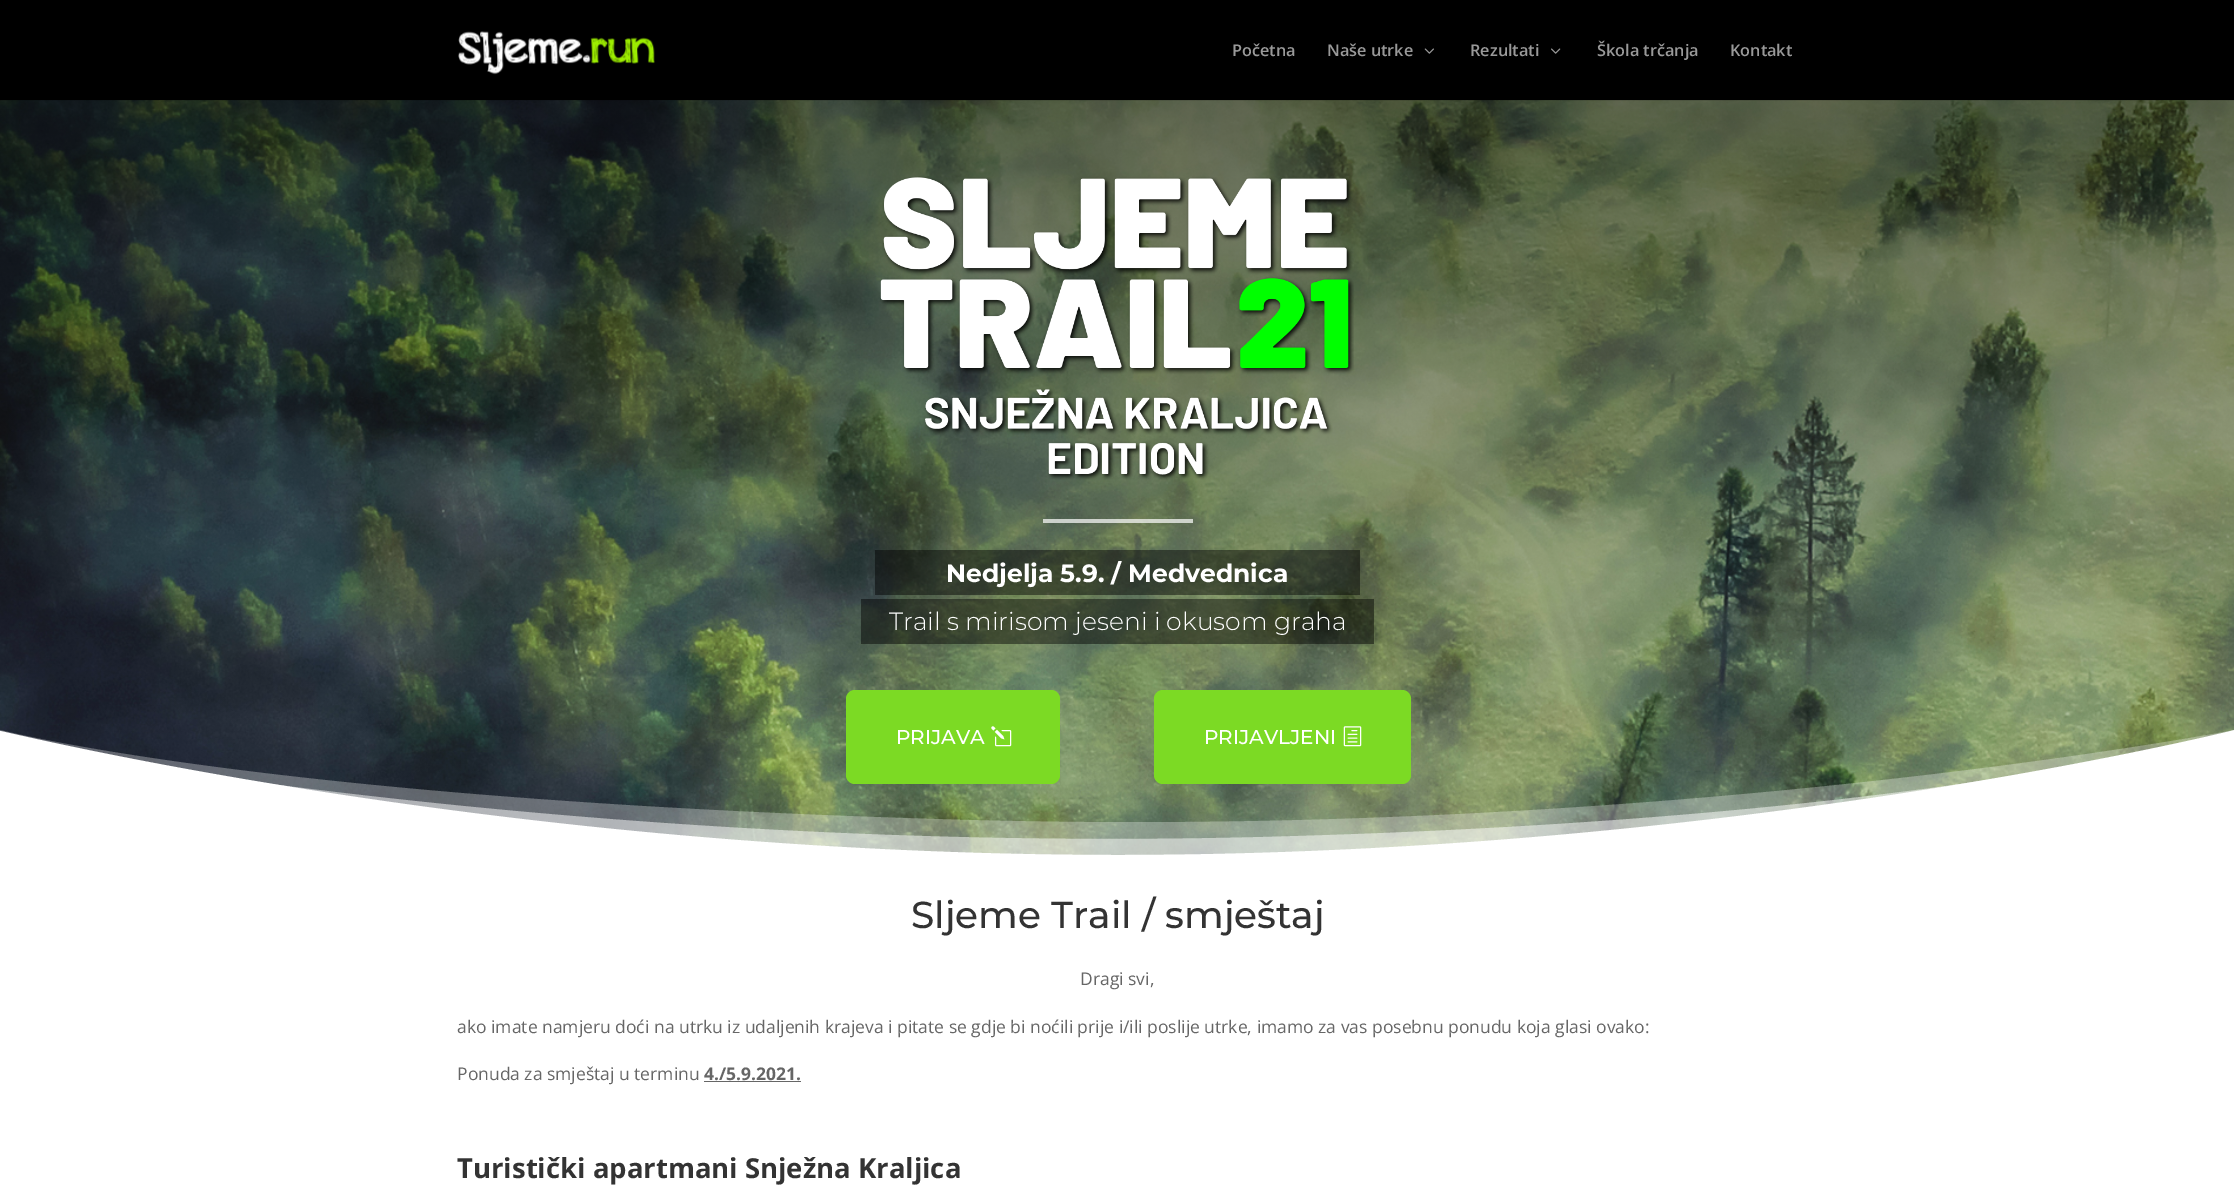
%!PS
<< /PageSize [2234 1197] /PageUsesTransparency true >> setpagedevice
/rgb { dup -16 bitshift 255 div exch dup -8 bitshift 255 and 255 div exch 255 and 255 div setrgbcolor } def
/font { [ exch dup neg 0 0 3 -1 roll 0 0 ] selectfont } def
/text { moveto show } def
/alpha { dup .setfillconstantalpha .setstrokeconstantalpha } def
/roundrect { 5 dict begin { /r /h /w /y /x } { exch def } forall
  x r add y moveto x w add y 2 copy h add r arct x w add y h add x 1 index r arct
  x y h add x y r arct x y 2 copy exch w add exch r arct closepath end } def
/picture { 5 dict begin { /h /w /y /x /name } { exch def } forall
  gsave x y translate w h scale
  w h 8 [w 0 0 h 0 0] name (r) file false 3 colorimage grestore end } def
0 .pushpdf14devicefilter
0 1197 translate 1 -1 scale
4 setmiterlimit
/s1 { /OpenSans-SemiBold 16.25 font 16#999999 rgb } def
/s2 { /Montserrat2-Thin 25 font 16#FFFFFF rgb } def
/s3 { /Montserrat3-Thin 25 font 16#FFFFFF rgb } def
/s4 { /Montserrat-Thin 20 font 16#FFFFFF rgb } def
/s5 { /Montserrat-Thin 37.5 font 16#333333 rgb } def
/s6 { /OpenSans-Regular 17.5 font 16#666666 rgb } def
/s7 { /OpenSans-Bold 17.5 font 16#666666 rgb } def
/s8 { /OpenSans-Bold 27.5 font 16#333333 rgb } def
16#FFFFFF rgb
0 0 2234 1197 rectfill
(pic4.raw) 0 100 2234 755 picture
0.1 alpha
16#000000 rgb
0 100 2234 1 rectfill
1 alpha
0 0 2234 100 rectfill
(pic1.raw) 458 31 197 44 picture
s1
(Početna) 1232 56 text
(Naše utrke) 1327 56 text
(pic2.raw) 1424 48 10 6 picture
(Rezultati) 1470 56 text
(pic3.raw) 1551 48 10 6 picture
(Škola trčanja) 1597 56 text
(Kontakt) 1730 56 text
(pic5.raw) 880 176 474 304 picture
0.7 alpha
16#FFFFFF rgb
1043 519 150 4 rectfill
0.46 alpha
16#000000 rgb
875 550 485 45 rectfill
1 alpha
s2
(Nedjelja 5.9. / Medvednica) 946 582 text
0.46 alpha
16#000000 rgb
861 599 513 45 rectfill
1 alpha
s3
(Trail s mirisom jeseni i okusom graha) 889 630 text
0.3 alpha
969 820 moveto 1667 839 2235 730 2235 730 curveto 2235 855 lineto 0 855 lineto 0 730 lineto 0 730 270 801 969 820 curveto closepath fill
0.5 alpha
1263 837 moveto 570 855 0 742 0 742 curveto 0 855 lineto 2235 855 lineto 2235 730 lineto 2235 730 1956 819 1263 837 curveto closepath fill
gsave
0 730 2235 125 rectclip
1 alpha
1118 855 moveto 500 855 0 730 0 731 curveto 0 856 lineto 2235 856 lineto 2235 730 lineto 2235 730 1735 855 1118 855 curveto closepath fill
grestore
1 alpha
16#7CDA24 rgb
846 690 214 94 9 roundrect fill
s4
(PRIJAVA) 896 744 text
(pic6.raw) 991 726 21 21 picture
16#7CDA24 rgb
1154 690 257 94 9 roundrect fill
s4
(PRIJAVLJENI) 1204 744 text
(pic7.raw) 1343 726 19 21 picture
s5
(Sljeme Trail / smještaj) 911 928 text
s6
(Dragi svi,) 1080 985 text
(ako imate namjeru doći na utrku iz udaljenih krajeva i pitate se gdje bi noćili prije i/ili poslije utrke, imamo za vas posebnu ponudu koja glasi ovako:) 457 1033 text
(Ponuda za smještaj u terminu) 457 1080 text
s7
(4./5.9.2021.) 704 1080 text
704 1081 97 1 rectfill
s8
(Turistički apartmani Snježna Kraljica) 457 1178 text
.poppdf14devicefilter showpage
